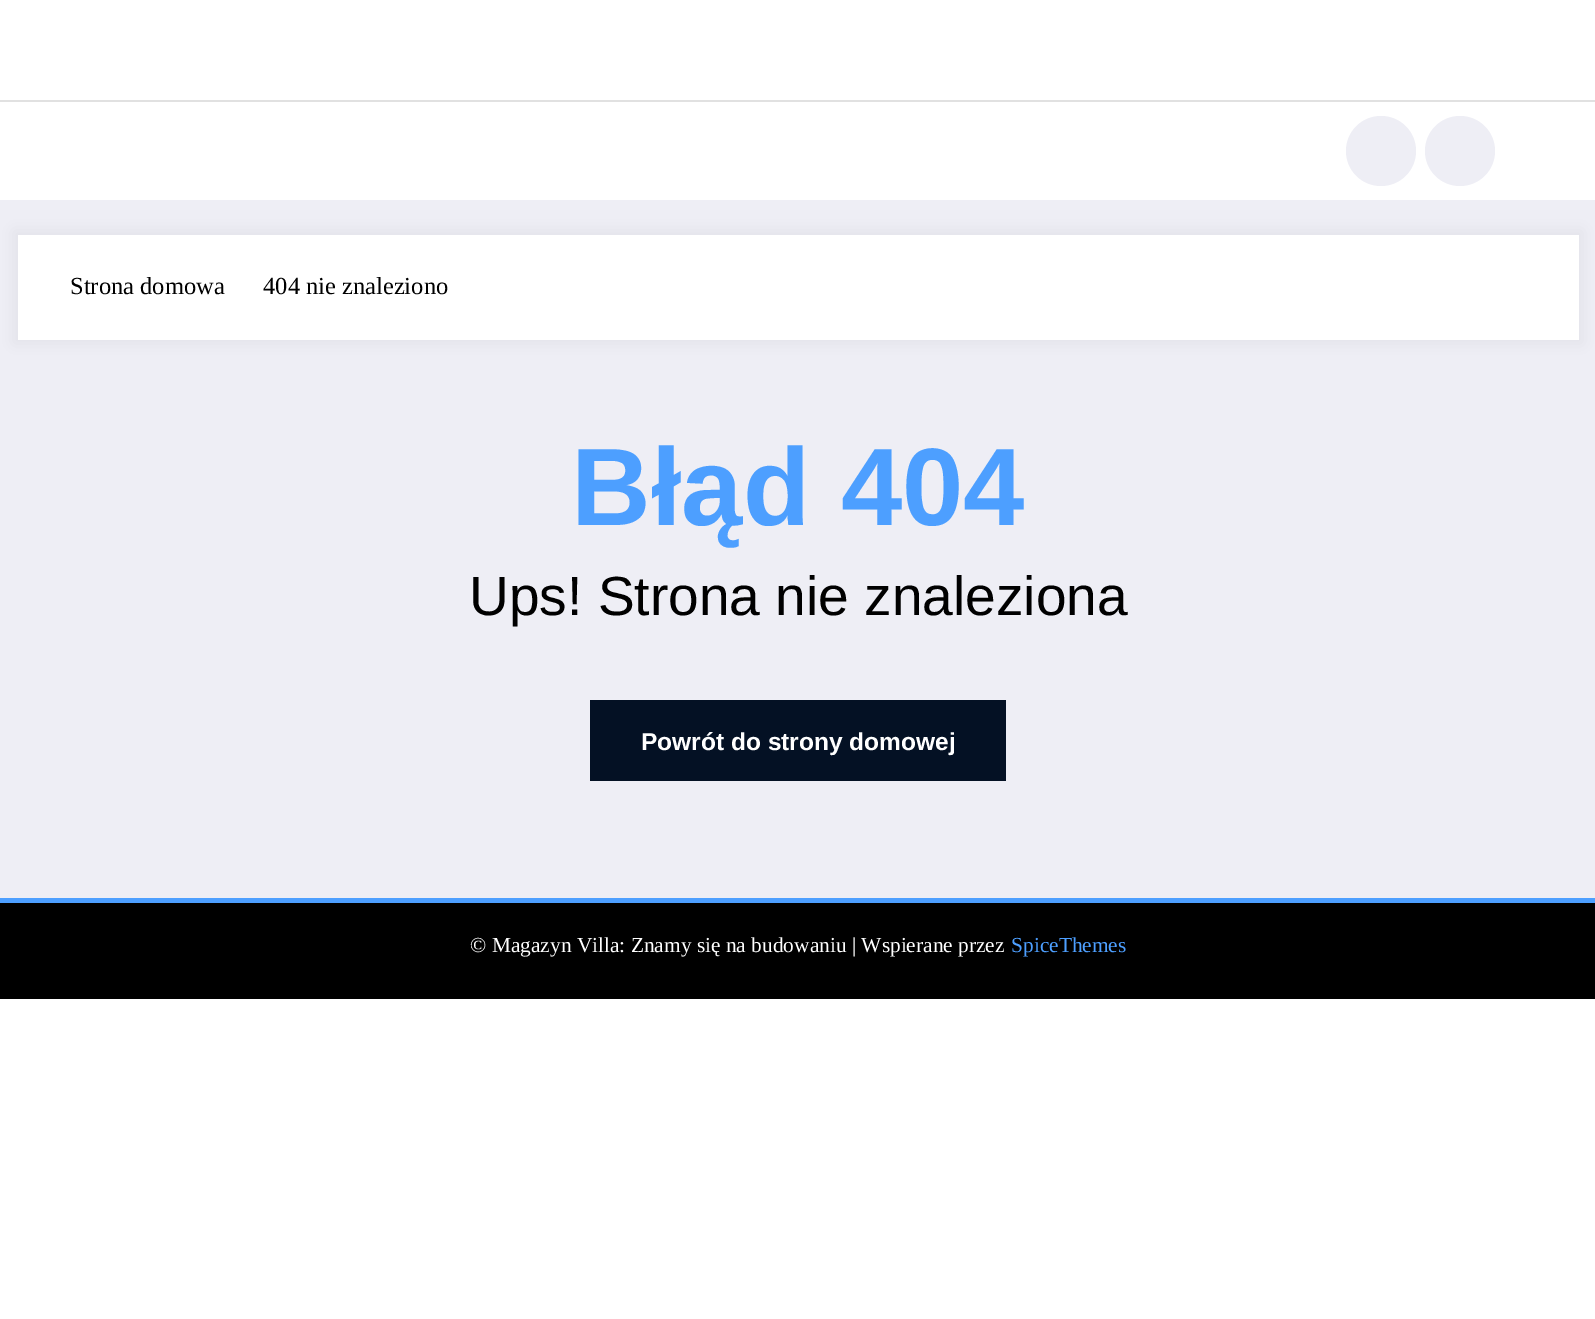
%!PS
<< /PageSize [1595 1319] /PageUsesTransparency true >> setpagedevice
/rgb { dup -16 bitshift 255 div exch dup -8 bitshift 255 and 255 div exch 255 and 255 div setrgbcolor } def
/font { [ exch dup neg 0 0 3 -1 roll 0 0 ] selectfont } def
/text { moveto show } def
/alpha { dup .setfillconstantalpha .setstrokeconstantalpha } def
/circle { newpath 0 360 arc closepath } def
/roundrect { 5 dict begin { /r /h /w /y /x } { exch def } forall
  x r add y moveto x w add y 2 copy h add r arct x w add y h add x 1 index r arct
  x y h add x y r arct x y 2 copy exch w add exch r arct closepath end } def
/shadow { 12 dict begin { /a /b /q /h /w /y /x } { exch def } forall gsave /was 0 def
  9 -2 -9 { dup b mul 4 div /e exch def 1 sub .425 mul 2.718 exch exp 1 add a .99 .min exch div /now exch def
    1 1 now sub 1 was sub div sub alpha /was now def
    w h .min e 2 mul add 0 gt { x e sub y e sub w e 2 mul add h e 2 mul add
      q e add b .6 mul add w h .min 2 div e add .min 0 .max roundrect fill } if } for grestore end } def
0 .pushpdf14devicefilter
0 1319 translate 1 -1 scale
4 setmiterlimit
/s1 { /LiberationSerif-Regular 24.5 font 16#000000 rgb } def
/s2 { /LiberationSans-Bold 110.25 font 16#4D9FFF rgb } def
/s3 { /LiberationSans-Regular 55.1 font 16#000000 rgb } def
/s4 { /LiberationSans-Bold 24.5 font 16#FFFFFF rgb } def
/s5 { /LiberationSerif-Regular 21.4 font 16#FFFFFF rgb } def
/s6 { /LiberationSerif-Regular 21.4 font 16#4D9FFF rgb } def
16#FFFFFF rgb
0 0 1595 1319 rectfill
16#EEEEF5 rgb
0 200 1595 698 rectfill
16#E1E1E1 rgb
0 100 1595 2 rectfill
16#EEEEF5 rgb
1381 151 35 circle fill
1460 151 35 circle fill
16#171723 rgb
14 231 1568 112 0 7 0.05 shadow
16#FFFFFF rgb
18 235 1561 105 rectfill
s1
(Strona domowa) 70 294 text
(404 nie znaleziono) 263 294 text
s2
(Błąd 404) 571 525 text
s3
(Ups! Strona nie znaleziona) 469 615 text
16#041124 rgb
590 700 416 81 rectfill
s4
(Powrót do strony domowej) 641 750 text
16#4D9FFF rgb
0 898 1595 5 rectfill
16#000000 rgb
0 903 1595 96 rectfill
s5
(© Magazyn Villa: Znamy się na budowaniu | Wspierane przez) 470 952 text
s6
(SpiceThemes) 1011 952 text
.poppdf14devicefilter showpage
